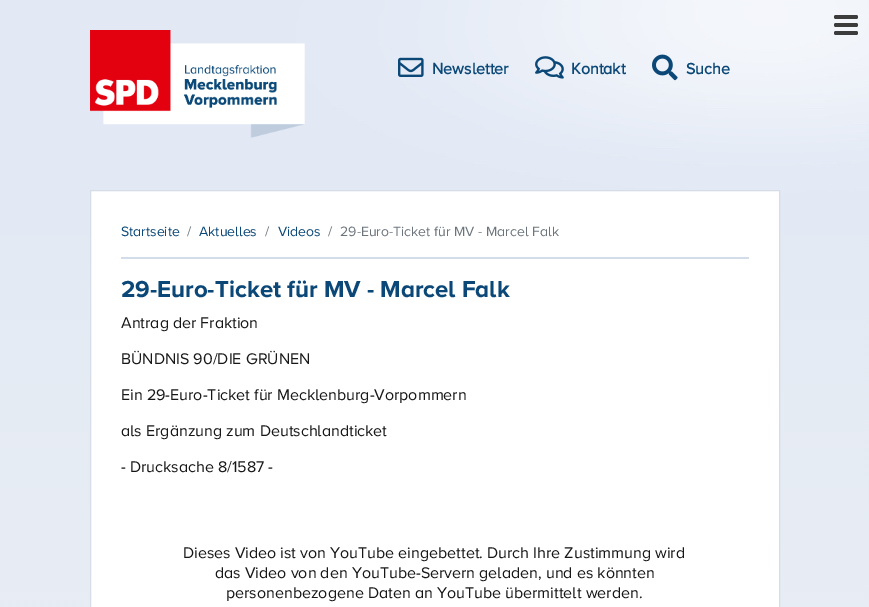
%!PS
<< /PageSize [869 607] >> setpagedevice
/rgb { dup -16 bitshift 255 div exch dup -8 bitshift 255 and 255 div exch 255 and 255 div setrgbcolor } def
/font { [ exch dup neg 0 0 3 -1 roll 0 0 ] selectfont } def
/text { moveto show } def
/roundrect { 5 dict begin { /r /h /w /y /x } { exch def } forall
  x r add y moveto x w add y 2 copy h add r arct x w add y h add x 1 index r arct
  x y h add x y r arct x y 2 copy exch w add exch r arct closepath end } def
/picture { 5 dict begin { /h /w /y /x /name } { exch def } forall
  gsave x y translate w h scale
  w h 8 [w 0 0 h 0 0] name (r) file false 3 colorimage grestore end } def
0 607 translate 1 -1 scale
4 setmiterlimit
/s1 { /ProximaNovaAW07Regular-Bold 16 font 16#0B4877 rgb } def
/s2 { /ProximaNovaAW07Regular-Regular 14 font 16#0B4877 rgb } def
/s3 { /ProximaNovaAW07Regular-Regular 14 font 16#6C757D rgb } def
/s4 { /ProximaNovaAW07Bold-Bold 24 font 16#0B4877 rgb } def
/s5 { /ProximaNovaAW07Regular-Regular 16 font 16#181717 rgb } def
16#FFFFFF rgb
0 0 869 607 rectfill
(pic1.raw) 0 0 869 607 picture
16#3C3C3C rgb
834 23 24 4 2 roundrect fill
834 15 24 4 2 roundrect fill
834 31 24 4 2 roundrect fill
(pic2.raw) 90 30 215 108 picture
(pic3.raw) 398 57 26 20 picture
s1
(Newsletter) 432 74 text
(pic4.raw) 535 56 29 23 picture
(Kontakt) 571 74 text
(pic5.raw) 652 54 26 27 picture
(Suche) 686 74 text
16#FFFFFF rgb
90.5 190.5 moveto 779.5 190.5 lineto 779.5 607.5 lineto 90.5 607.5 lineto closepath gsave fill grestore
16#D6DDE8 rgb
stroke
16#D3DCE9 rgb
121 257 628 2 rectfill
s2
(Startseite) 121 236 text
s3
(/) 187 236 text
s2
(Aktuelles) 199 236 text
s3
(/) 265 236 text
s2
(Videos) 278 236 text
s3
(/) 328 236 text
(29-Euro-Ticket für MV - Marcel Falk) 340 236 text
s4
(29-Euro-Ticket für MV - Marcel Falk) 121 297 text
s5
(Antrag der Fraktion) 121 328 text
(BÜNDNIS 90/DIE GRÜNEN) 121 364 text
(Ein 29-Euro-Ticket für Mecklenburg-Vorpommern) 121 400 text
(als Ergänzung zum Deutschlandticket) 121 436 text
(- Drucksache 8/1587 -) 121 472 text
(Dieses Video ist von YouTube eingebettet. Durch Ihre Zustimmung wird) 183 558 text
(das Video von den YouTube-Servern geladen, und es könnten) 215 578 text
(personenbezogene Daten an YouTube übermittelt werden.) 226 598 text
showpage
